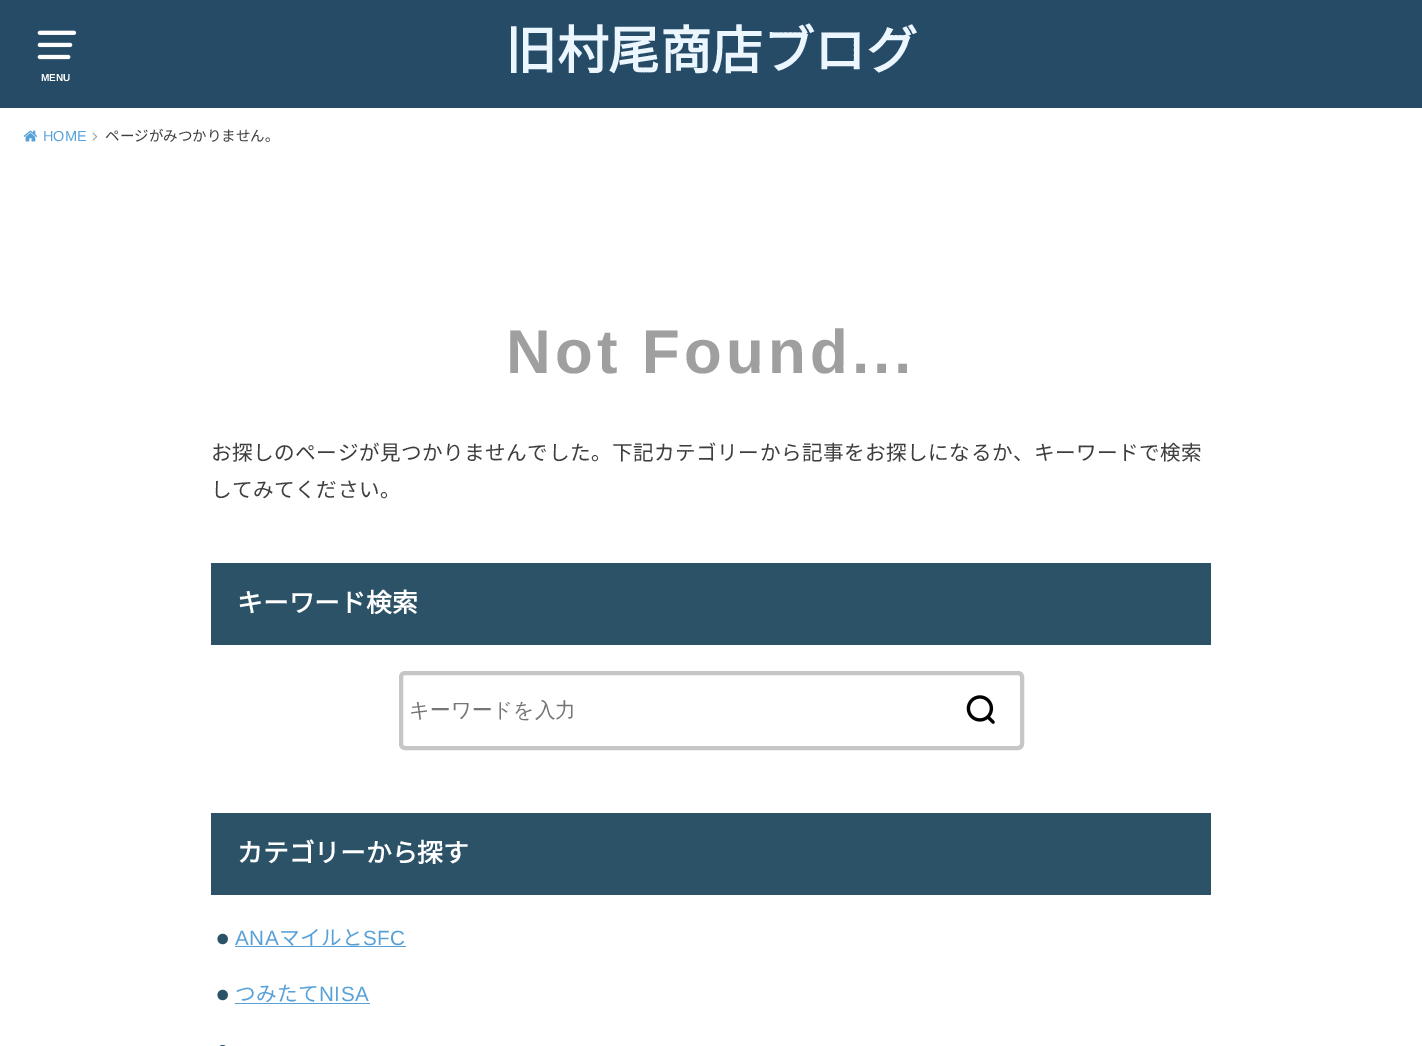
%!PS
<< /PageSize [1422 1046] >> setpagedevice
/rgb { dup -16 bitshift 255 div exch dup -8 bitshift 255 and 255 div exch 255 and 255 div setrgbcolor } def
/font { [ exch dup neg 0 0 3 -1 roll 0 0 ] selectfont } def
/text { moveto show } def
/roundrect { 5 dict begin { /r /h /w /y /x } { exch def } forall
  x r add y moveto x w add y 2 copy h add r arct x w add y h add x 1 index r arct
  x y h add x y r arct x y 2 copy exch w add exch r arct closepath end } def
/picture { 5 dict begin { /h /w /y /x /name } { exch def } forall
  gsave x y translate w h scale
  w h 8 [w 0 0 h 0 0] name (r) file false 3 colorimage grestore end } def
0 1046 translate 1 -1 scale
4 setmiterlimit
/s1 { /NotoSansJP-Bold 51.5 font 16#ECF6FF rgb } def
/s2 { /LiberationSans-Bold 10 font 16#FFFFFF rgb } def
/s3 { /LiberationSans-Regular 14.5 font 16#57A1D8 rgb } def
/s4 { /NotoSansJP-Thin 14.5 font 16#3E3E3E rgb } def
/s5 { /NotoSansJP-Bold 25.75 font 16#FFFFFF rgb } def
/s6 { /WenQuanYiZenHei-Medium 20.6 font 16#757575 rgb } def
16#FFFFFF rgb
0 0 1422 1046 rectfill
16#264B67 rgb
0 0 1422 108 rectfill
s1
(旧村尾商店ブログ) 505 69 text
(pic1.raw) 37 30 40 30 picture
s2
(MENU) 41 81 text
(pic2.raw) 23 130 15 12 picture
s3
(HOME) 43 141 text
(pic3.raw) 92 132 6 9 picture
s4
(ページがみつかりません。) 105 141 text
/LiberationSans-Bold 61.75 font
16#9F9F9F rgb
506 373 moveto 4.1 0 (Not Found...) ashow
/NotoSansJP-Thin 20.6 font
16#3E3E3E rgb
211 460 moveto 0.5 0 (お探しのページが見つかりませんでした。下記カテゴリーから記事をお探しになるか、キーワードで検索) ashow
211 497 moveto 0.5 0 (してみてください。) ashow
16#2C5268 rgb
211 563 1000 82 rectfill
s5
(キーワード検索) 237 612 text
16#C6C6C6 rgb
4 setlinewidth
401 673 621 75 4 roundrect stroke
s6
(キーワードを入力) 409 717 text
(pic4.raw) 966 695 29 29 picture
16#2C5268 rgb
211 813 1000 82 rectfill
s5
(カテゴリーから探す) 237 862 text
(pic5.raw) 217 933 11 12 picture
/LiberationSans-Regular 20.6 font
16#57A1D8 rgb
235 945 moveto 0.5 0 (ANA) ashow
/NotoSansJP-Thin 20.6 font
279 945 moveto 0.5 0 (マイルと) ashow
/LiberationSans-Regular 20.6 font
363 945 moveto 0.5 0 (SFC) ashow
235 946 171 1 rectfill
(pic6.raw) 217 989 11 12 picture
/NotoSansJP-Thin 20.6 font
235 1001 moveto 0.5 0 (つみたて) ashow
/LiberationSans-Regular 20.6 font
319 1001 moveto 0.5 0 (NISA) ashow
235 1003 135 1 rectfill
(pic7.raw) 219 1044 7 2 picture
showpage
